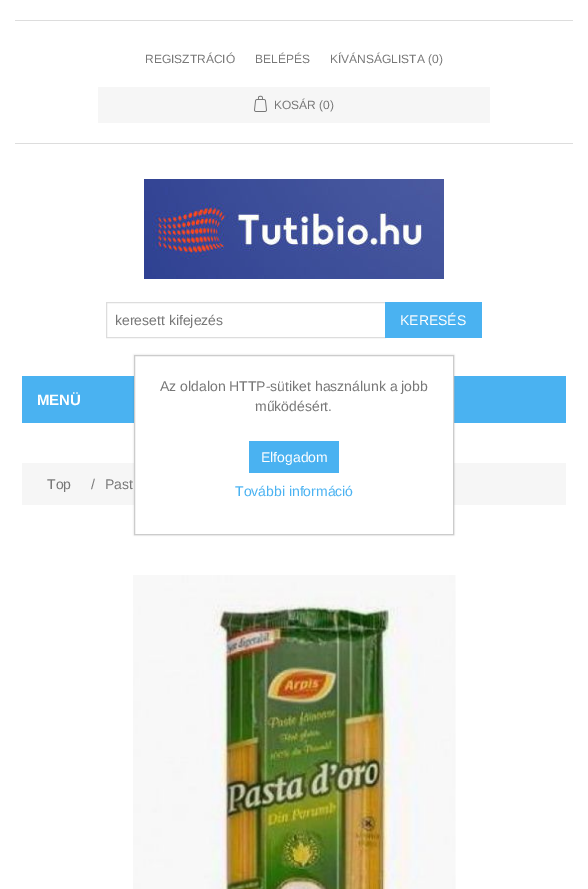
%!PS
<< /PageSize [588 889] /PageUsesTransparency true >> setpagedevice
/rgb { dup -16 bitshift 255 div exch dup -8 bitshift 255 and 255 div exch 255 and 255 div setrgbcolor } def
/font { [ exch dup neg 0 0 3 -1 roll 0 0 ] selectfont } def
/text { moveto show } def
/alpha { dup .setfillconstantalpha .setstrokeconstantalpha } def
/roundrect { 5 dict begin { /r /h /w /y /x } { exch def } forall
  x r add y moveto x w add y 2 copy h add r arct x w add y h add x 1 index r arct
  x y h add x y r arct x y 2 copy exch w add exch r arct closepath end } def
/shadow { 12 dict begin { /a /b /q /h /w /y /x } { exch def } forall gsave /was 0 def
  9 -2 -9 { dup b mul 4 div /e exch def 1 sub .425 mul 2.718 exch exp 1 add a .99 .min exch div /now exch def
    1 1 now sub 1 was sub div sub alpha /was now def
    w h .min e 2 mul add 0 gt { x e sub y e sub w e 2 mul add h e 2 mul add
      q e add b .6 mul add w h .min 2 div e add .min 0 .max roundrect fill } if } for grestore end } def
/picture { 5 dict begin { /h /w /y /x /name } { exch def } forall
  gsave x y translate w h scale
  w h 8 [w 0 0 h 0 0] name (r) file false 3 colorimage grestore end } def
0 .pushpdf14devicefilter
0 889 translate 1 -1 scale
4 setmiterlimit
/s1 { /LiberationSans-Regular 12 font 16#777777 rgb } def
/s2 { /LiberationSans-Regular 14 font 16#777777 rgb } def
/s3 { /LiberationSans-Regular 14 font 16#FFFFFF rgb } def
/s4 { /LiberationSans-Bold 15 font 16#FFFFFF rgb } def
/s5 { /LiberationSans-Regular 14 font 16#4AB2F1 rgb } def
16#FFFFFF rgb
0 0 588 889 rectfill
16#DDDDDD rgb
15 143 558 1 rectfill
15 20 558 1 rectfill
s1
(REGISZTRÁCIÓ) 145 63 text
(BELÉPÉS) 255 63 text
(KÍVÁNSÁGLISTA \(0\)) 330 63 text
16#F6F6F6 rgb
98 87 392 36 rectfill
(pic1.raw) 254 95 13 17 picture
s1
(KOSÁR \(0\)) 274 109 text
(pic2.raw) 144 179 300 100 picture
16#DDDDDD rgb
106.5 302.5 279 35 rectstroke
s2
(keresett kifejezés) 115 325 text
16#4AB2F1 rgb
385 302 97 36 rectfill
s3
(KERESÉS) 400 325 text
16#4AB2F1 rgb
22 376 544 47 rectfill
s4
(MENÜ) 37 405 text
16#F6F6F6 rgb
22 463 544 42 rectfill
s2
(Top) 47 489 text
(/) 91 489 text
(Past) 105 489 text
(pic3.raw) 133 575 323 314 picture
16#000000 rgb
134 355 320 180 0 1 0.15 shadow
16#FFFFFF rgb
134.5 355.5 moveto 453.5 355.5 lineto 453.5 534.5 lineto 134.5 534.5 lineto closepath gsave fill grestore
16#CCCCCC rgb
stroke
s2
(Az oldalon HTTP-sütiket használunk a jobb) 160 391 text
(működésért.) 255 411 text
16#4AB2F1 rgb
249 441 90 32 rectfill
s3
(Elfogadom) 261 462 text
s5
(További információ) 235 496 text
.poppdf14devicefilter showpage
